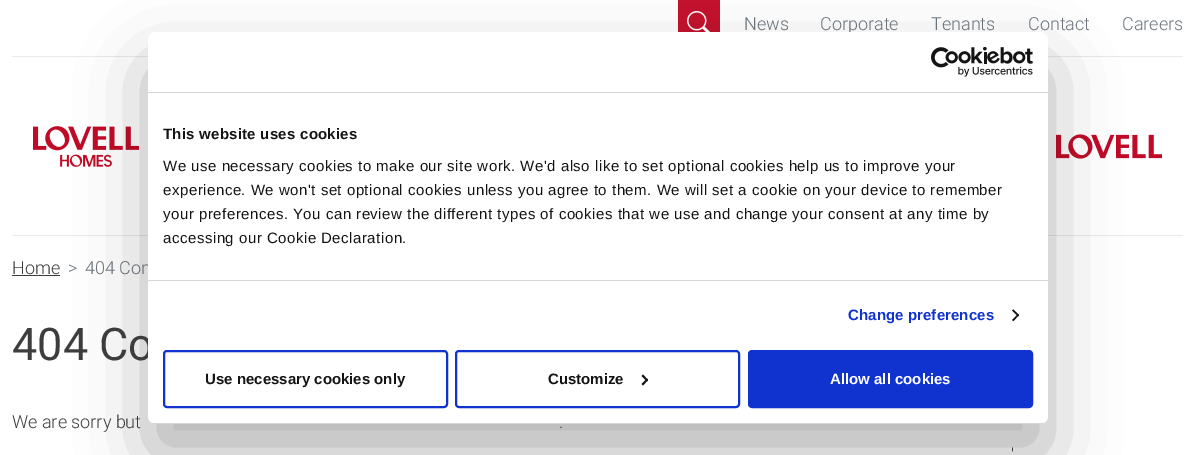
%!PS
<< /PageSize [1195 455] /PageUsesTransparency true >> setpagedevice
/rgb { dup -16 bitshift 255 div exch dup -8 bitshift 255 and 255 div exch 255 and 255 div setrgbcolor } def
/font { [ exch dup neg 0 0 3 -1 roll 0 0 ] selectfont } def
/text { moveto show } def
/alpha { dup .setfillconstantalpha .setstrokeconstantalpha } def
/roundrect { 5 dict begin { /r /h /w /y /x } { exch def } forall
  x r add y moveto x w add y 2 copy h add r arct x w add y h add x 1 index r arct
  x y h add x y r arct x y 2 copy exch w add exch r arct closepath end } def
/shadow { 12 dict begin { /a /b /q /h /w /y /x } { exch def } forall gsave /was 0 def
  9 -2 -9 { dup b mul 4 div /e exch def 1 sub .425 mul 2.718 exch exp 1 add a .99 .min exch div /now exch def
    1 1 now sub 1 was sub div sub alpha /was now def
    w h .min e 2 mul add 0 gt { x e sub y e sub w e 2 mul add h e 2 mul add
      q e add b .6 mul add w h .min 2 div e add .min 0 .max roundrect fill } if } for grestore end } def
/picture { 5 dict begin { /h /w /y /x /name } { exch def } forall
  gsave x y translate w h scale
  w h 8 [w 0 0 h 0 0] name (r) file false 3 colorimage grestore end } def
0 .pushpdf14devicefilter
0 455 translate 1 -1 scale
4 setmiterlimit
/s1 { /Roboto-Light 18 font 16#6C757D rgb } def
/s2 { /Roboto-Light 18 font 16#3D3D3D rgb } def
/s3 { /Roboto-Regular 45 font 16#3D3D3D rgb } def
/s4 { /LiberationSans-Bold 15 font 16#141414 rgb } def
/s5 { /LiberationSans-Bold 15 font 16#FFFFFF rgb } def
16#FFFFFF rgb
0 0 1195 455 rectfill
16#C4122D rgb
678 0 42 32 rectfill
(pic1.raw) 687 11 23 21 picture
s1
(News) 744 30 text
(Corporate) 820 30 text
(Tenants) 931 30 text
(Contact) 1028 30 text
(Careers) 1122 30 text
16#E9E9E9 rgb
12 56 1171 1 rectfill
(pic2.raw) 33 126 106 41 picture
(pic3.raw) 1056 134 106 25 picture
12 235 1171 1 rectfill
s2
(Home) 12 274 text
12 275 48 1 rectfill
s1
(>) 68 274 text
(404 Con) 85 274 text
16#000000 rgb
148 64 900 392 8 34 0.3 shadow
s3
(404 Co) 12 360 text
16#FFFFFF rgb
148 32 900 392 8 roundrect fill
16#D6D6D6 rgb
148 92 900 1 rectfill
(pic4.raw) 931 47 102 30 picture
148 280 900 1 rectfill
/LiberationSans-Bold 15 font
16#141414 rgb
163 139 moveto 0.25 0 (This website uses cookies) ashow
/LiberationSans-Regular 15 font
163 171 moveto 0.5 0 (We use necessary cookies to make our site work. We'd also like to set optional cookies help us to improve your) ashow
163 195 moveto 0.5 0 (experience. We won't set optional cookies unless you agree to them. We will set a cookie on your device to remember) ashow
163 219 moveto 0.5 0 (your preferences. You can review the different types of cookies that we use and change your consent at any time by) ashow
163 243 moveto 0.5 0 (accessing our Cookie Declaration.) ashow
/LiberationSans-Bold 15 font
16#1032CF rgb
848 320 moveto 0.1 0 (Change preferences) ashow
16#141414 rgb
1013.5 309.5 moveto 1019 315 lineto 1018 316.5 lineto 1012 310.5 lineto closepath fill
1018 314 moveto 1019 315 lineto 1013.5 321 lineto 1012 320 lineto closepath fill
gsave
148 32 900 392 8 roundrect clip newpath
16#D6D6D6 rgb
148 423 900 1 rectfill
grestore
16#1032CF rgb
2 setlinewidth
164 351 283 56 3 roundrect stroke
s4
(Use necessary cookies only) 205 384 text
16#1032CF rgb
456 351 283 56 3 roundrect stroke
s4
(Customize) 548 384 text
643 374.5 moveto 648 380 lineto 647 381.5 lineto 641.5 376 lineto closepath fill
647 378.5 moveto 648 380 lineto 643 385.5 lineto 641.5 384 lineto closepath fill
16#1032CF rgb
749 351 283 56 3 roundrect gsave fill grestore
stroke
s5
(Allow all cookies) 830 384 text
s2
(We are sorry but) 12 428 text
(.) 559 428 text
(') 1011 461 text
.poppdf14devicefilter showpage
